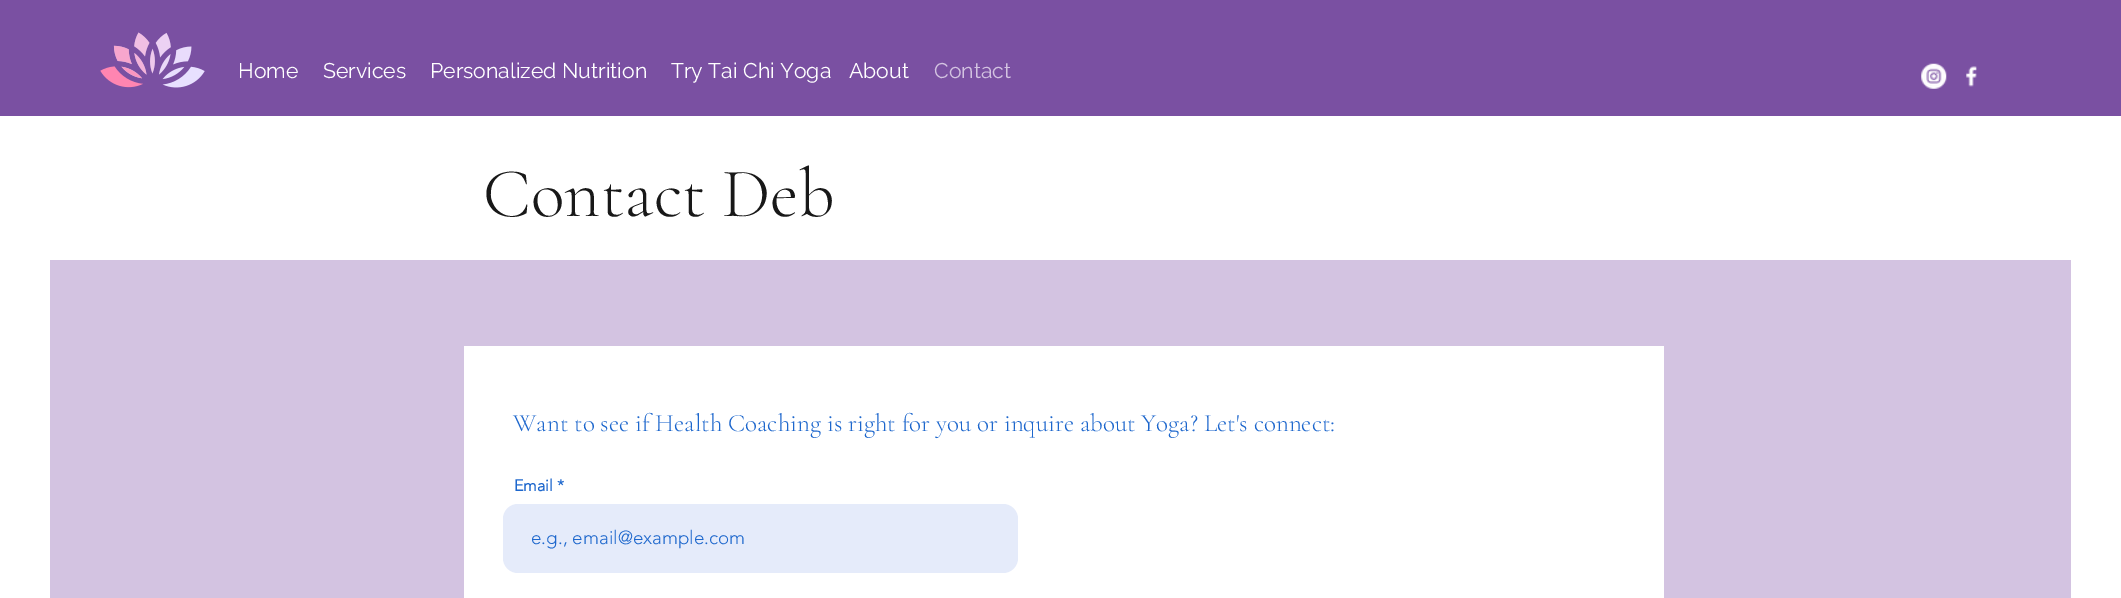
%!PS
<< /PageSize [2121 598] >> setpagedevice
/rgb { dup -16 bitshift 255 div exch dup -8 bitshift 255 and 255 div exch 255 and 255 div setrgbcolor } def
/font { [ exch dup neg 0 0 3 -1 roll 0 0 ] selectfont } def
/text { moveto show } def
/roundrect { 5 dict begin { /r /h /w /y /x } { exch def } forall
  x r add y moveto x w add y 2 copy h add r arct x w add y h add x 1 index r arct
  x y h add x y r arct x y 2 copy exch w add exch r arct closepath end } def
/picture { 5 dict begin { /h /w /y /x /name } { exch def } forall
  gsave x y translate w h scale
  w h 8 [w 0 0 h 0 0] name (r) file false 3 colorimage grestore end } def
0 598 translate 1 -1 scale
4 setmiterlimit
/s1 { /Raleway-Regular 21.25 font 16#FFFFFF rgb } def
/s2 { /Raleway-Regular 21.25 font 16#D3C3E1 rgb } def
/s3 { /CormorantGaramond-Light 70 font 16#181818 rgb } def
/s4 { /CormorantGaramond-Light 25 font 16#1D67CD rgb } def
/s5 { /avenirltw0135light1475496-Bold 16 font 16#1D67CD rgb } def
/s6 { /avenirltw0135light1475496-Light 18.75 font 16#1D67CD rgb } def
16#FFFFFF rgb
0 0 2121 598 rectfill
16#7A50A2 rgb
0 0 2121 116 rectfill
(pic1.raw) 100 32 105 56 picture
s1
(Home) 238 78 text
(Services) 323 78 text
(Personalized Nutrition) 430 78 text
(Try Tai Chi Yoga) 671 78 text
(About) 849 78 text
s2
(Contact) 934 78 text
(pic2.raw) 1921 63 26 26 picture
(pic3.raw) 1966 66 11 21 picture
s3
(Contact Deb) 483 216 text
16#D3C3E1 rgb
50 260 2021 338 rectfill
16#FFFFFF rgb
464 346 1200 252 rectfill
s4
(Want to see if Health Coaching is right for you or inquire about Yoga? Let's connect:) 513 431 text
s5
(Email *) 514 491 text
16#E5EBFA rgb
503 504 515 69 15 roundrect fill
s6
(e.g., email@example.com) 531 544 text
showpage
